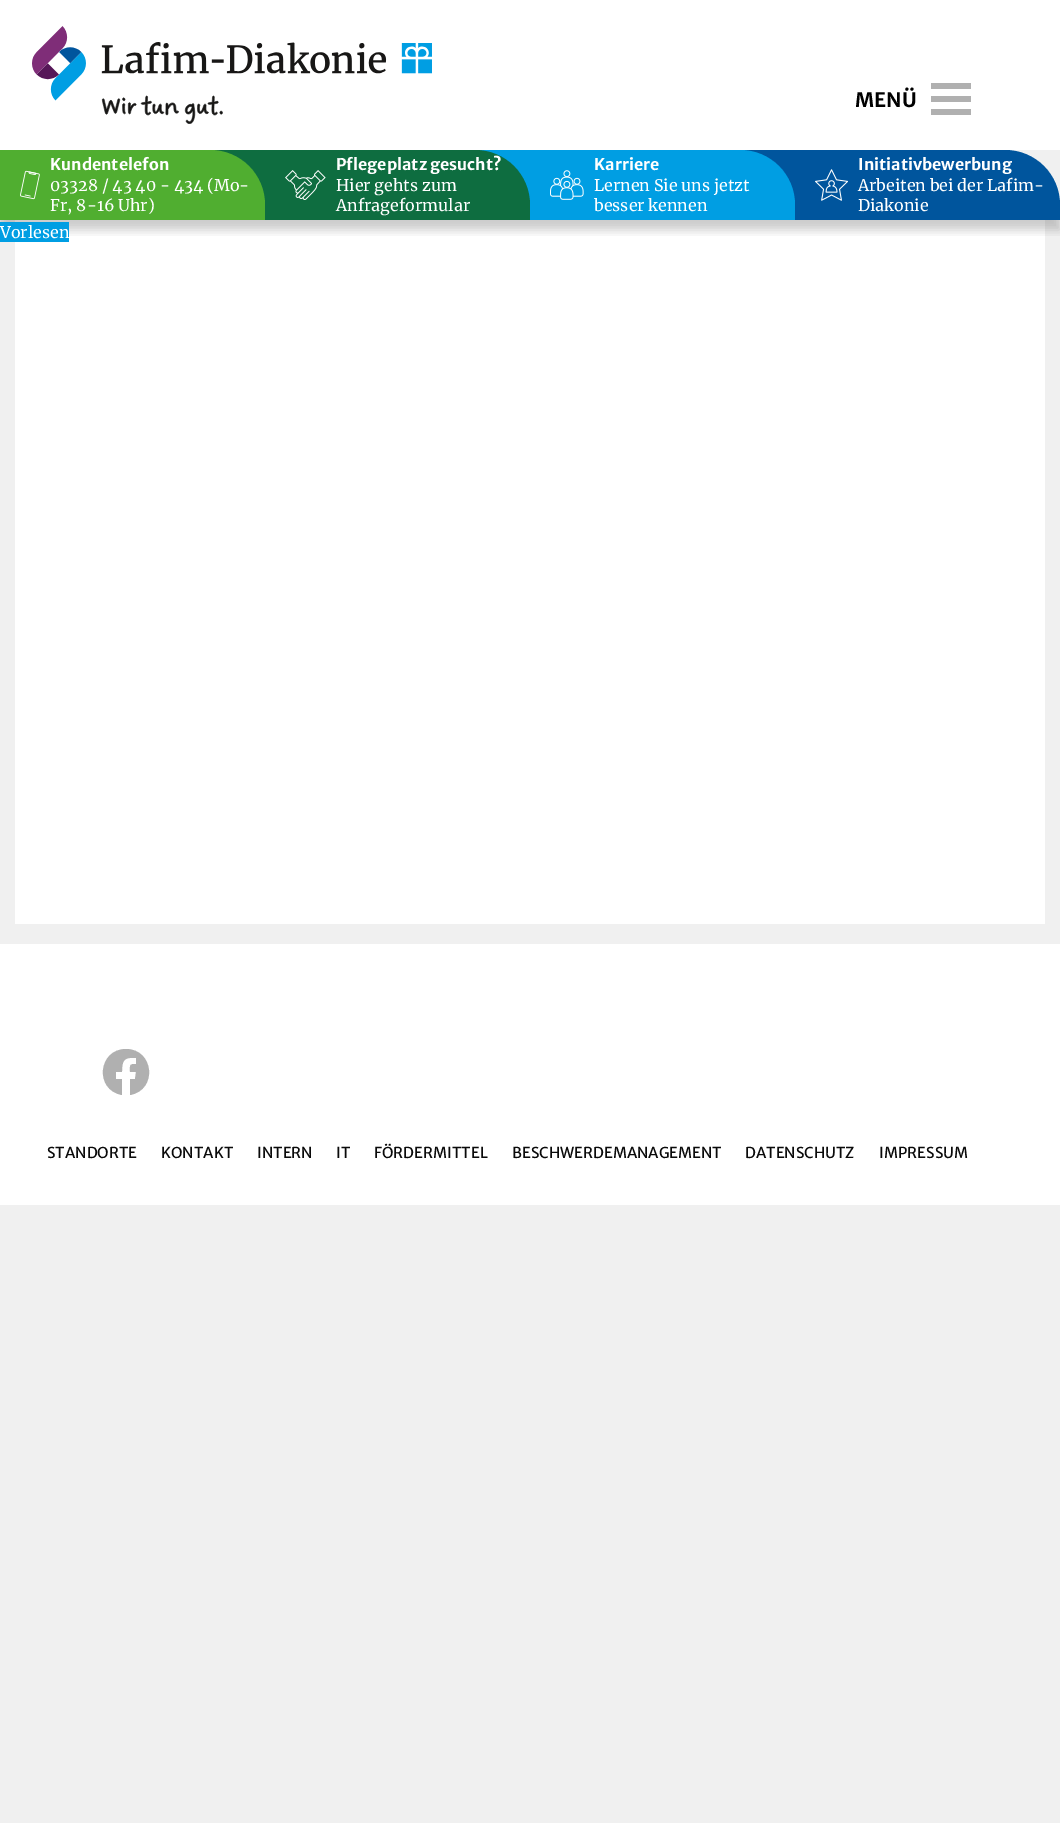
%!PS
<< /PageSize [1060 1823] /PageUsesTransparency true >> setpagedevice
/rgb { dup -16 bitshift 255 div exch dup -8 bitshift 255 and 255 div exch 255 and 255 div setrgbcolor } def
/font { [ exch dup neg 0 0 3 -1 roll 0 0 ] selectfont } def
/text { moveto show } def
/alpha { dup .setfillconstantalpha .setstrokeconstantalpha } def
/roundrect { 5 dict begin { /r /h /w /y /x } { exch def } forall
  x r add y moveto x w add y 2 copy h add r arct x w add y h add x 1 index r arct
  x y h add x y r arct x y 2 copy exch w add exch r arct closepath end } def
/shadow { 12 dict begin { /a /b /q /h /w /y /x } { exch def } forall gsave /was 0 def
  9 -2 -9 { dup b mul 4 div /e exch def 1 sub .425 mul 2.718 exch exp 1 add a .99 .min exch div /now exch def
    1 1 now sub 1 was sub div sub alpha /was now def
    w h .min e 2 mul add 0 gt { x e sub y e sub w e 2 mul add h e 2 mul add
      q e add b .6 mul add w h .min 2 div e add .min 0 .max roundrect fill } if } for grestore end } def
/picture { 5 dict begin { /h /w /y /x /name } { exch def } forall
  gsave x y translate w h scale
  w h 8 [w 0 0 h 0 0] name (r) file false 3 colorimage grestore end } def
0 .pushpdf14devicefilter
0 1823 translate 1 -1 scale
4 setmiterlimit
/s1 { /MerriweatherSans-Bold 20 font 16#000000 rgb } def
/s2 { /MerriweatherSans-Bold 16 font 16#FFFFFF rgb } def
/s3 { /Merriweather-Regular 16 font 16#FFFFFF rgb } def
/s4 { /MerriweatherSans-Regular 15 font 16#0A0A0A rgb } def
16#F0F0F0 rgb
0 0 1060 1823 rectfill
16#FFFFFF rgb
0 0 1060 150 rectfill
(pic1.raw) 32 26 400 98 picture
s1
(MENÜ) 855 107 text
16#B0B0B0 rgb
931 83 40 6 rectfill
931 96 40 6 rectfill
931 109 40 6 rectfill
16#FFFFFF rgb
15 220 1030 704 rectfill
gsave
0 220 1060 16 rectclip
16#000000 rgb
0 160 1060 70 0 5 0.2 shadow
grestore
16#00559D rgb
745 150 moveto 1005 150 lineto 1035.5 150 1060 174.5 1060 205 curveto 1060 220 lineto 745 220 lineto closepath fill
16#009EE3 rgb
480 150 moveto 740 150 lineto 770.5 150 795 174.5 795 205 curveto 795 220 lineto 480 220 lineto closepath fill
16#0E6D40 rgb
215 150 moveto 475 150 lineto 505.5 150 530 174.5 530 205 curveto 530 220 lineto 215 220 lineto closepath fill
16#50AE30 rgb
0 150 moveto 210 150 lineto 240.5 150 265 174.5 265 205 curveto 265 220 lineto 0 220 lineto closepath fill
(pic2.raw) 20 170 20 30 picture
s2
(Kundentelefon) 50 170 text
s3
(03328 / 43 40 - 434 \(Mo-) 50 191 text
(Fr, 8-16 Uhr\)) 50 211 text
(pic3.raw) 285 170 41 30 picture
s2
(Pflegeplatz gesucht?) 336 170 text
s3
(Hier gehts zum) 336 191 text
(Anfrageformular) 336 211 text
(pic4.raw) 550 170 34 30 picture
s2
(Karriere) 594 170 text
s3
(Lernen Sie uns jetzt) 594 191 text
(besser kennen) 594 211 text
(pic5.raw) 815 169 33 32 picture
s2
(Initiativbewerbung) 858 170 text
s3
(Arbeiten bei der Lafim-) 858 191 text
(Diakonie) 858 211 text
16#009EE3 rgb
0 222 69 20 rectfill
s3
(Vorlesen) 0 238 text
0 944 1060 261 rectfill
16#B0B0B0 rgb
126 1049 moveto 98 1049 94 1090 122 1095 curveto 122 1079 lineto 116 1079 lineto 116 1072 lineto 122 1072 lineto 122 1060 124 1057 136 1058 curveto 136 1064 lineto 129 1064 130 1065 130 1072 curveto 136 1072 lineto 135 1079 lineto 130 1079 lineto 130 1095 lineto 158 1090 154 1049 126 1049 curveto fill
s4
(STANDORTE) 47 1158 text
(KONTAKT) 161 1158 text
(INTERN) 257 1158 text
(IT) 336 1158 text
(FÖRDERMITTEL) 374 1158 text
(BESCHWERDEMANAGEMENT) 512 1158 text
(DATENSCHUTZ) 745 1158 text
(IMPRESSUM) 879 1158 text
.poppdf14devicefilter showpage
